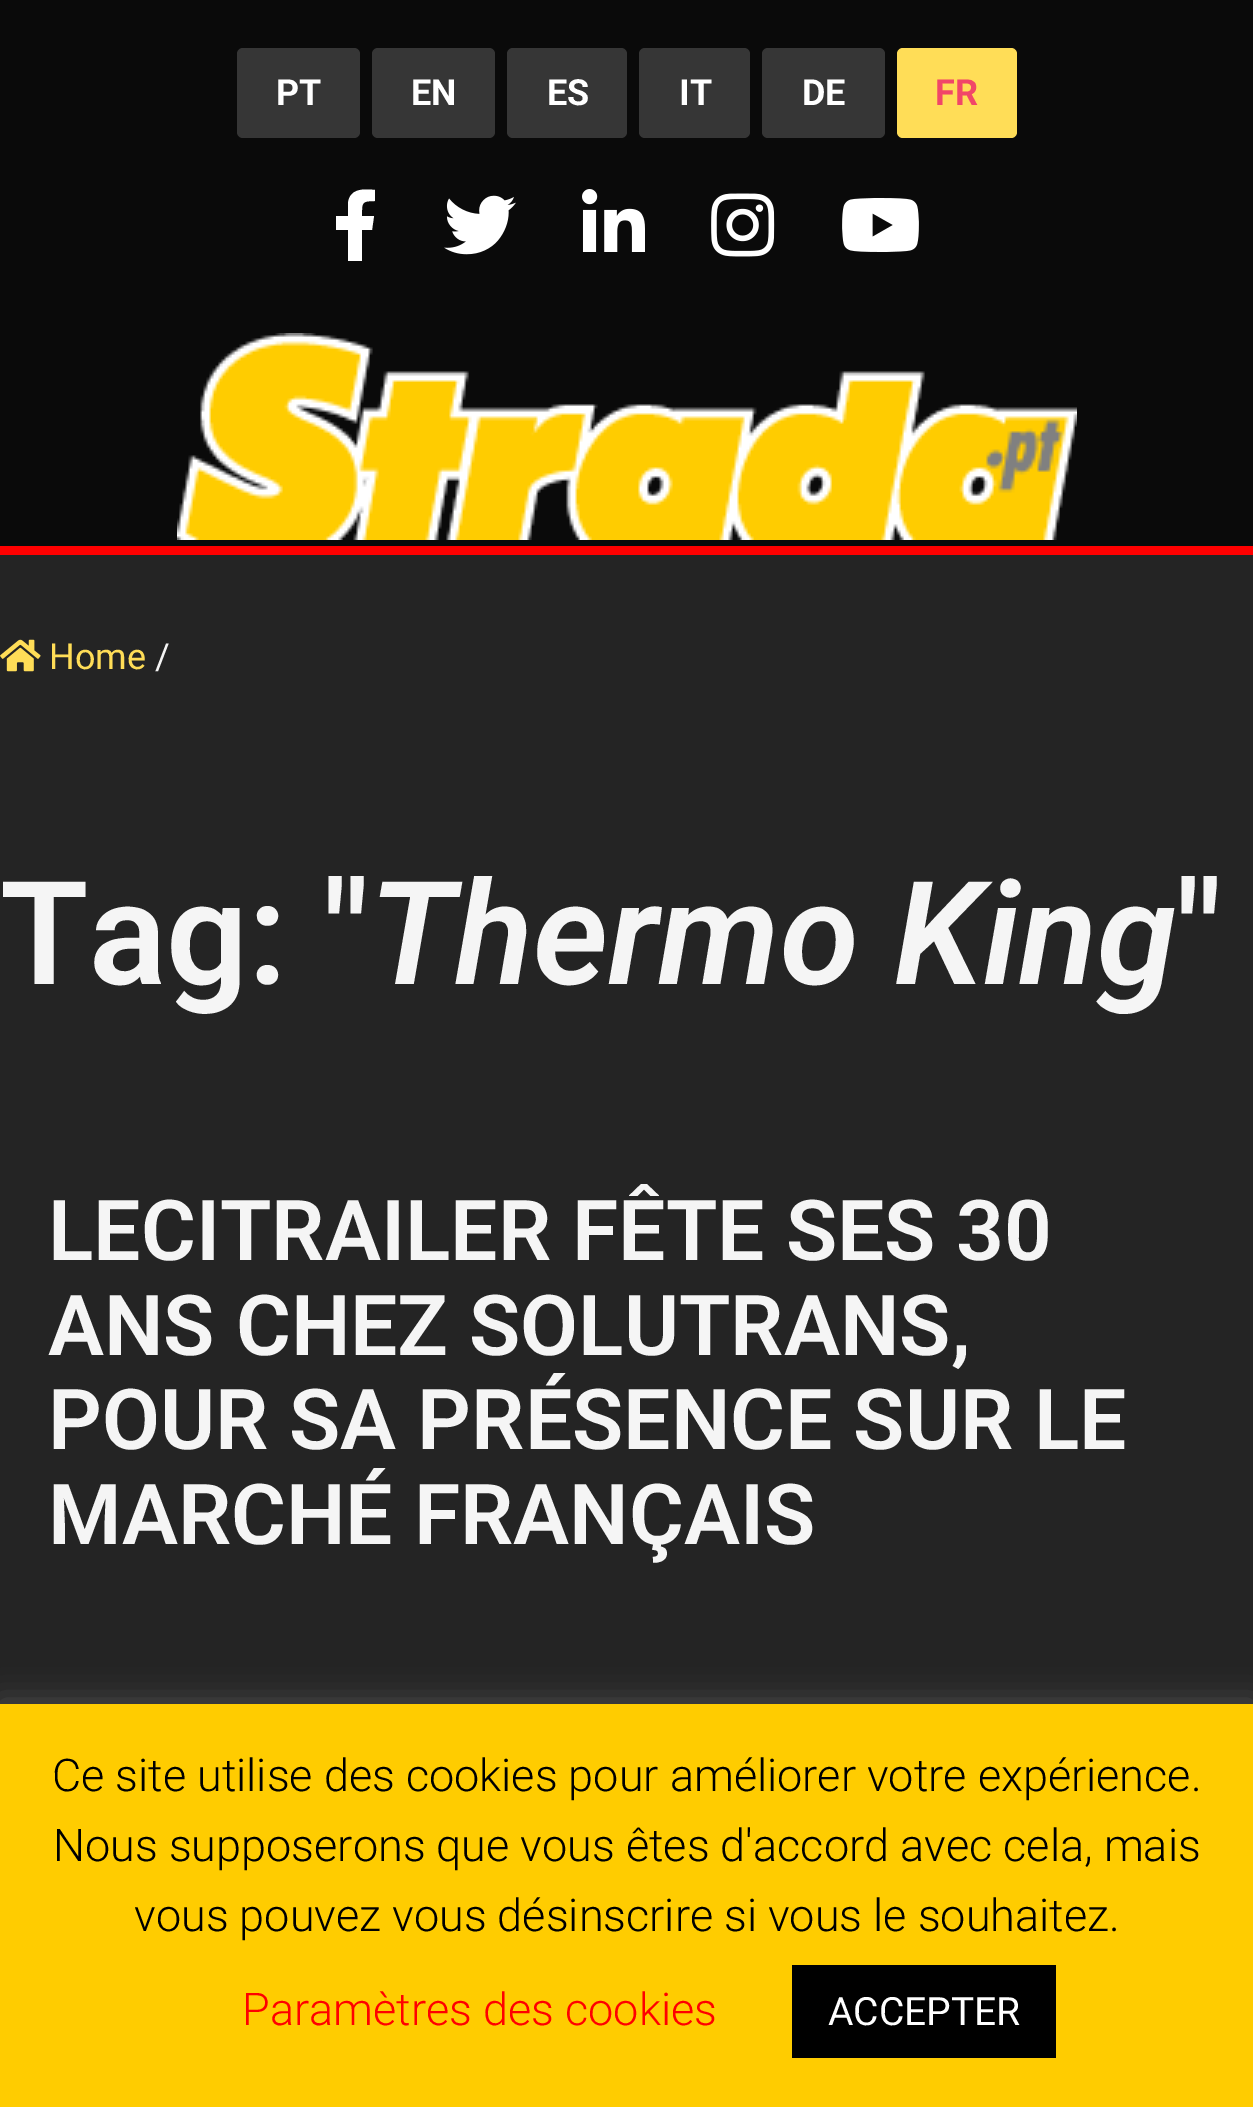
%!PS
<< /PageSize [1253 2107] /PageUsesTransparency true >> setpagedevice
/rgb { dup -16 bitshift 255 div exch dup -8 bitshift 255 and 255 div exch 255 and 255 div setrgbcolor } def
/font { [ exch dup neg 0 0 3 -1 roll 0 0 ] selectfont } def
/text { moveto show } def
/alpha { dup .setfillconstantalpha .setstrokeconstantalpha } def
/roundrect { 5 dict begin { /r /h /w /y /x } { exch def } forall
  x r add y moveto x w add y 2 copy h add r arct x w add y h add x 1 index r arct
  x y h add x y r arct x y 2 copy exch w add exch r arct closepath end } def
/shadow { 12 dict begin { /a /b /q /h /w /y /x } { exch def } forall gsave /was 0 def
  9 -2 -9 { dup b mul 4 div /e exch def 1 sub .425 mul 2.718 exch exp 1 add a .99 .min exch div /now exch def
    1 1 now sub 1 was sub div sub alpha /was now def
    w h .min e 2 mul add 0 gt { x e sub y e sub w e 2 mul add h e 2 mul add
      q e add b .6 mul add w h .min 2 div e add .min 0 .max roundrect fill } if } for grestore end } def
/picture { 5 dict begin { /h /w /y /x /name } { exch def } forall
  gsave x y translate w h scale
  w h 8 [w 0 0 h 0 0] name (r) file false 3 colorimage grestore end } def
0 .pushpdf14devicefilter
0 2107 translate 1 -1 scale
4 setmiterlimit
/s1 { /Roboto-Bold 36 font 16#FFFFFF rgb } def
/s2 { /Roboto-Bold 36 font 16#F14668 rgb } def
/s3 { /Roboto-Regular 36 font 16#FFDD57 rgb } def
/s4 { /Roboto-Regular 36 font 16#F5F5F5 rgb } def
/s5 { /Roboto-SemiBold 144 font 16#F5F5F5 rgb } def
/s6 { /Roboto-SemiBoldItalic 144 font 16#F5F5F5 rgb } def
/s7 { /Roboto-SemiBold 84 font 16#F5F5F5 rgb } def
/s8 { /Roboto-Light 45 font 16#000000 rgb } def
/s9 { /Roboto-Light 45 font 16#FF0000 rgb } def
/s10 { /Roboto-Regular 39 font 16#FFFFFF rgb } def
16#242424 rgb
0 0 1253 2107 rectfill
16#0A0A0A rgb
0 0 1253 546 rectfill
16#FF0000 rgb
0 546 1253 9 rectfill
16#363636 rgb
237 48 123 90 6 roundrect fill
s1
(PT) 276 105 text
16#363636 rgb
372 48 123 90 6 roundrect fill
s1
(EN) 411 105 text
16#363636 rgb
507 48 120 90 6 roundrect fill
s1
(ES) 547 105 text
16#363636 rgb
639 48 111 90 6 roundrect fill
s1
(IT) 679 105 text
16#363636 rgb
762 48 123 90 6 roundrect fill
s1
(DE) 802 105 text
16#FFDD57 rgb
897 48 120 90 6 roundrect fill
s2
(FR) 935 105 text
16#FFFFFF rgb
372 230 moveto 362 230 lineto 362 261 lineto 348 261 lineto 348 230 lineto 336 230 lineto 336 216 lineto 348 216 lineto 348 203 lineto 350 188 364 189 375 190 curveto 375 201 lineto 361 201 362 203 362 216 curveto 374 216 lineto closepath fill
(pic1.raw) 444 195 72 60 picture
(pic2.raw) 582 189 63 63 picture
(pic3.raw) 711 193 64 64 picture
(pic4.raw) 842 198 77 54 picture
(pic5.raw) 177 333 900 207 picture
(pic6.raw) 0 639 41 33 picture
s3
(Home) 49 669 text
s4
(/) 155 669 text
s5
(Tag: ") 0 984 text
s6
(Thermo King) 369 984 text
s5
(") 1176 984 text
s7
(LECITRAILER FÊTE SES 30) 48 1260 text
(ANS CHEZ SOLUTRANS,) 48 1355 text
(POUR SA PRÉSENCE SUR LE) 48 1449 text
(MARCHÉ FRANÇAIS) 48 1544 text
16#ACABAB rgb
0 1701 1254 405 0 15 0.3 shadow
16#FFCC00 rgb
0 1704 1253 403 rectfill
s8
(Ce site utilise des cookies pour améliorer votre expérience.) 52 1791 text
(Nous supposerons que vous êtes d'accord avec cela, mais) 53 1861 text
(vous pouvez vous désinscrire si vous le souhaitez.) 134 1931 text
s9
(Paramètres des cookies) 242 2025 text
16#000000 rgb
792 1965 264 93 rectfill
s10
(ACCEPTER) 828 2025 text
.poppdf14devicefilter showpage
